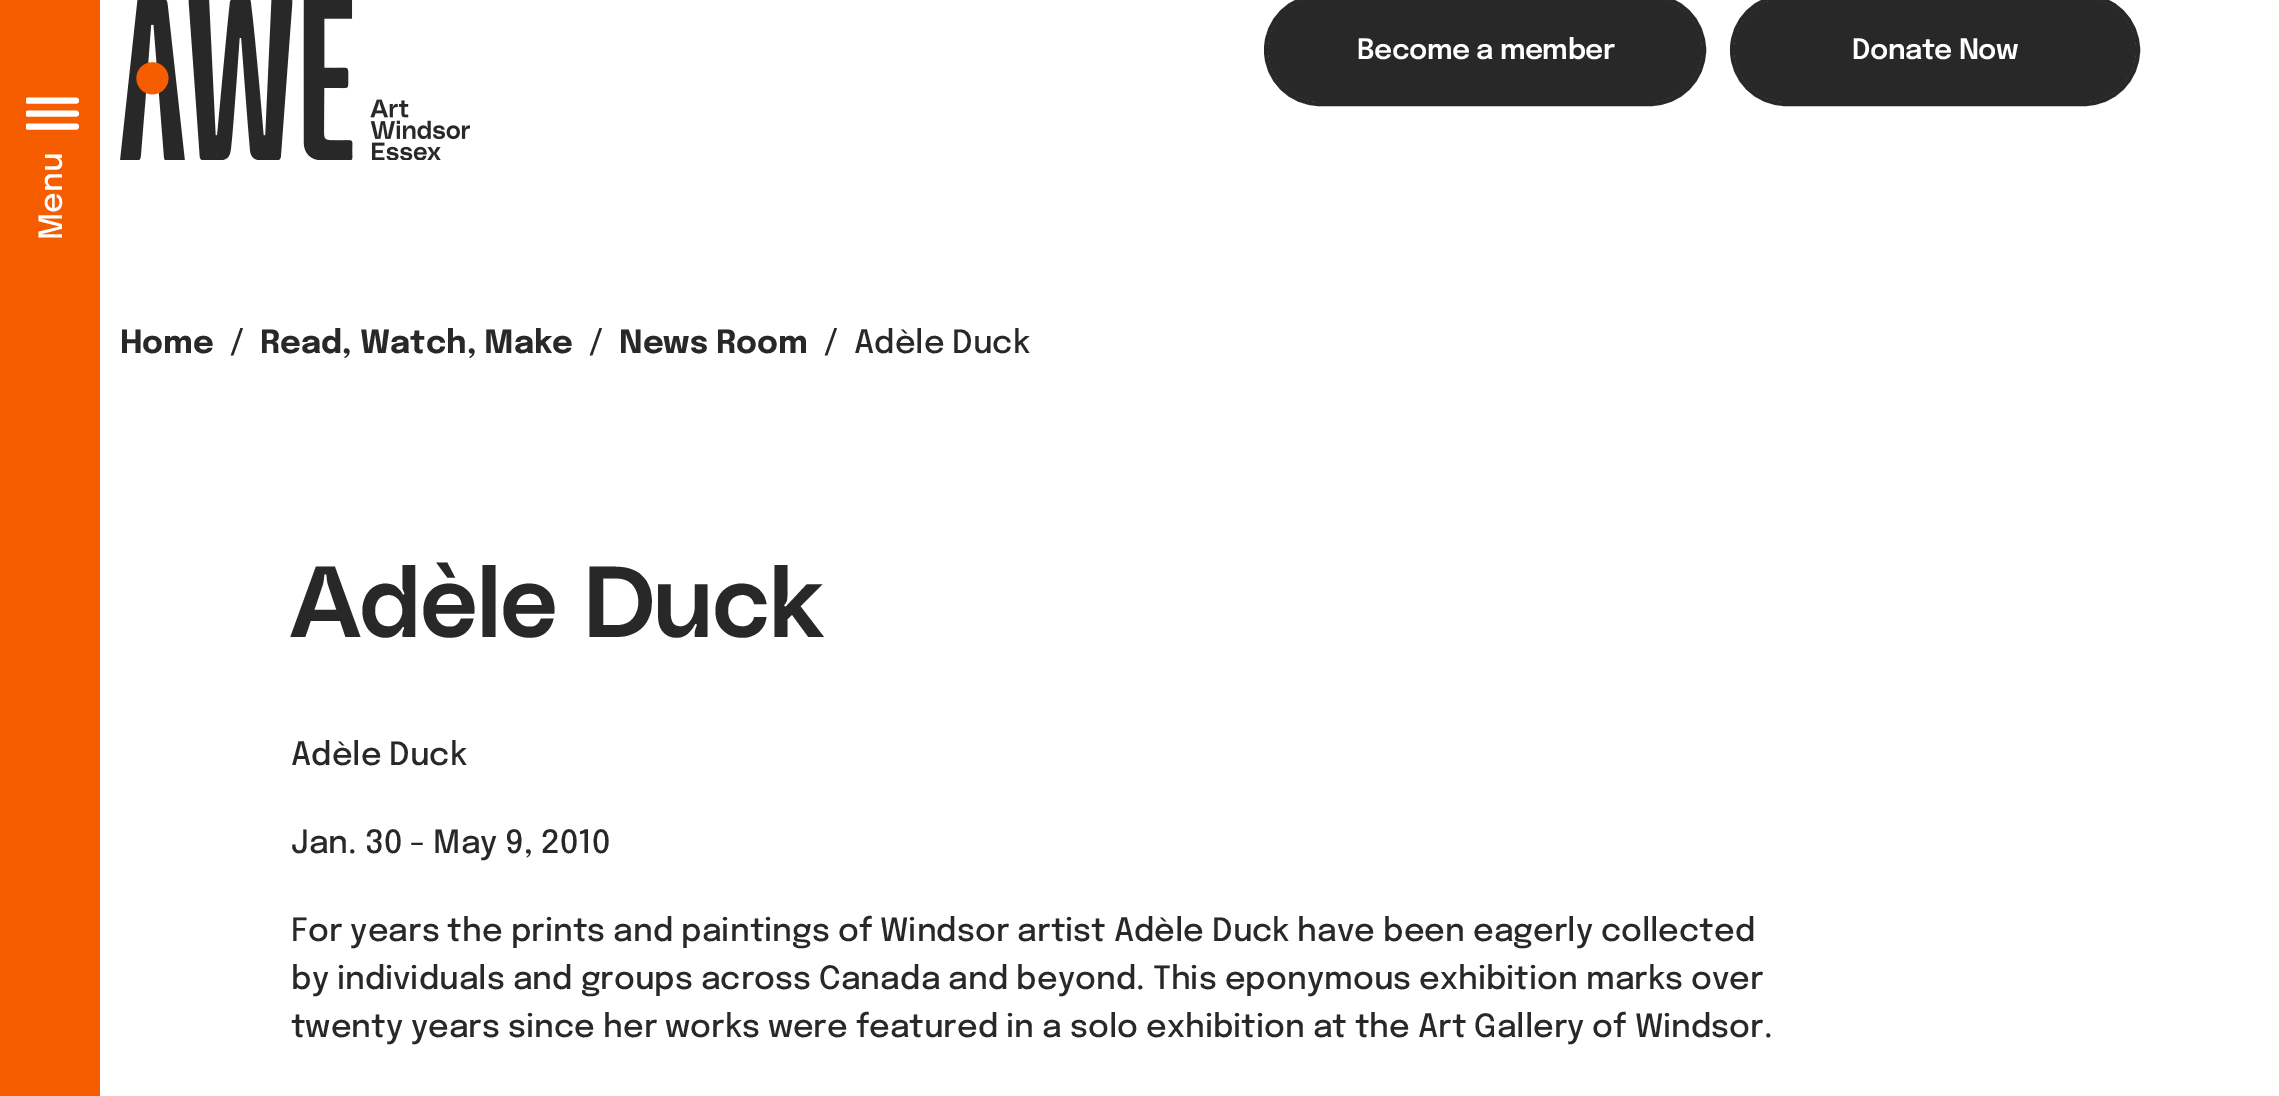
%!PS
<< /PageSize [2279 1096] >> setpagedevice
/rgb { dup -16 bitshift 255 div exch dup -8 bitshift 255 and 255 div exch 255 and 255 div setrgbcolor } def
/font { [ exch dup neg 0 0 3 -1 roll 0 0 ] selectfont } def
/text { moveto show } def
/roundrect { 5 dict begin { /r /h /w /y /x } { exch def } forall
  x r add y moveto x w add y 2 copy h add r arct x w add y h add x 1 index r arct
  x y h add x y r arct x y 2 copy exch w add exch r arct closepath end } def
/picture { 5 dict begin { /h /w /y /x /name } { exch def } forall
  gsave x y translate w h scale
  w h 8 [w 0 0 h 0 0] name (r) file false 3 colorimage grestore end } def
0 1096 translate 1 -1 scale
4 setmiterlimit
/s1 { /Epilogue-Bold 32 font 16#282828 rgb } def
/s2 { /Epilogue-Medium 32 font 16#282828 rgb } def
/s3 { /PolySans-SemiBold 100 font 16#282828 rgb } def
16#FFFFFF rgb
0 0 2279 1096 rectfill
16#F55D00 rgb
0 0 100 1096 rectfill
(pic1.raw) 120 0 350 160 picture
16#282828 rgb
4 setlinewidth
1266 -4 438 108 54 roundrect stroke
1268 -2 434 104 52 roundrect fill
/Epilogue-SemiBold 28 font
16#FFFFFF rgb
1357 59 moveto -0.5 0 (Become a member) ashow
16#282828 rgb
1732 -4 406 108 54 roundrect stroke
1734 -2 402 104 52 roundrect fill
16#FFFFFF rgb
1852 59 moveto -0.5 0 (Donate Now) ashow
s1
(Home) 120 353 text
s2
(/) 230 353 text
s1
(Read, Watch, Make) 260 353 text
s2
(/) 589 353 text
s1
(News Room) 619 353 text
s2
(/) 824 353 text
(Adèle Duck) 854 353 text
s3
(Adèle Duck) 291 637 text
s2
(Adèle Duck) 291 765 text
(Jan. 30 - May 9, 2010) 291 853 text
(For years the prints and paintings of Windsor artist Adèle Duck have been eagerly collected) 291 941 text
(by individuals and groups across Canada and beyond. This eponymous exhibition marks over) 291 989 text
(twenty years since her works were featured in a solo exhibition at the Art Gallery of Windsor.) 291 1037 text
gsave
26 96 54 34 rectclip
16#FFFFFF rgb
6 setlinewidth
1 setlinecap
28 100.5 moveto 76 100.5 lineto 28 113.5 moveto 76 113.5 lineto 28 126.5 moveto 76 126.5 lineto stroke
grestore
16#FFFFFF rgb
gsave 62 240 translate -90 rotate 0 0 moveto (Menu) show grestore
showpage
